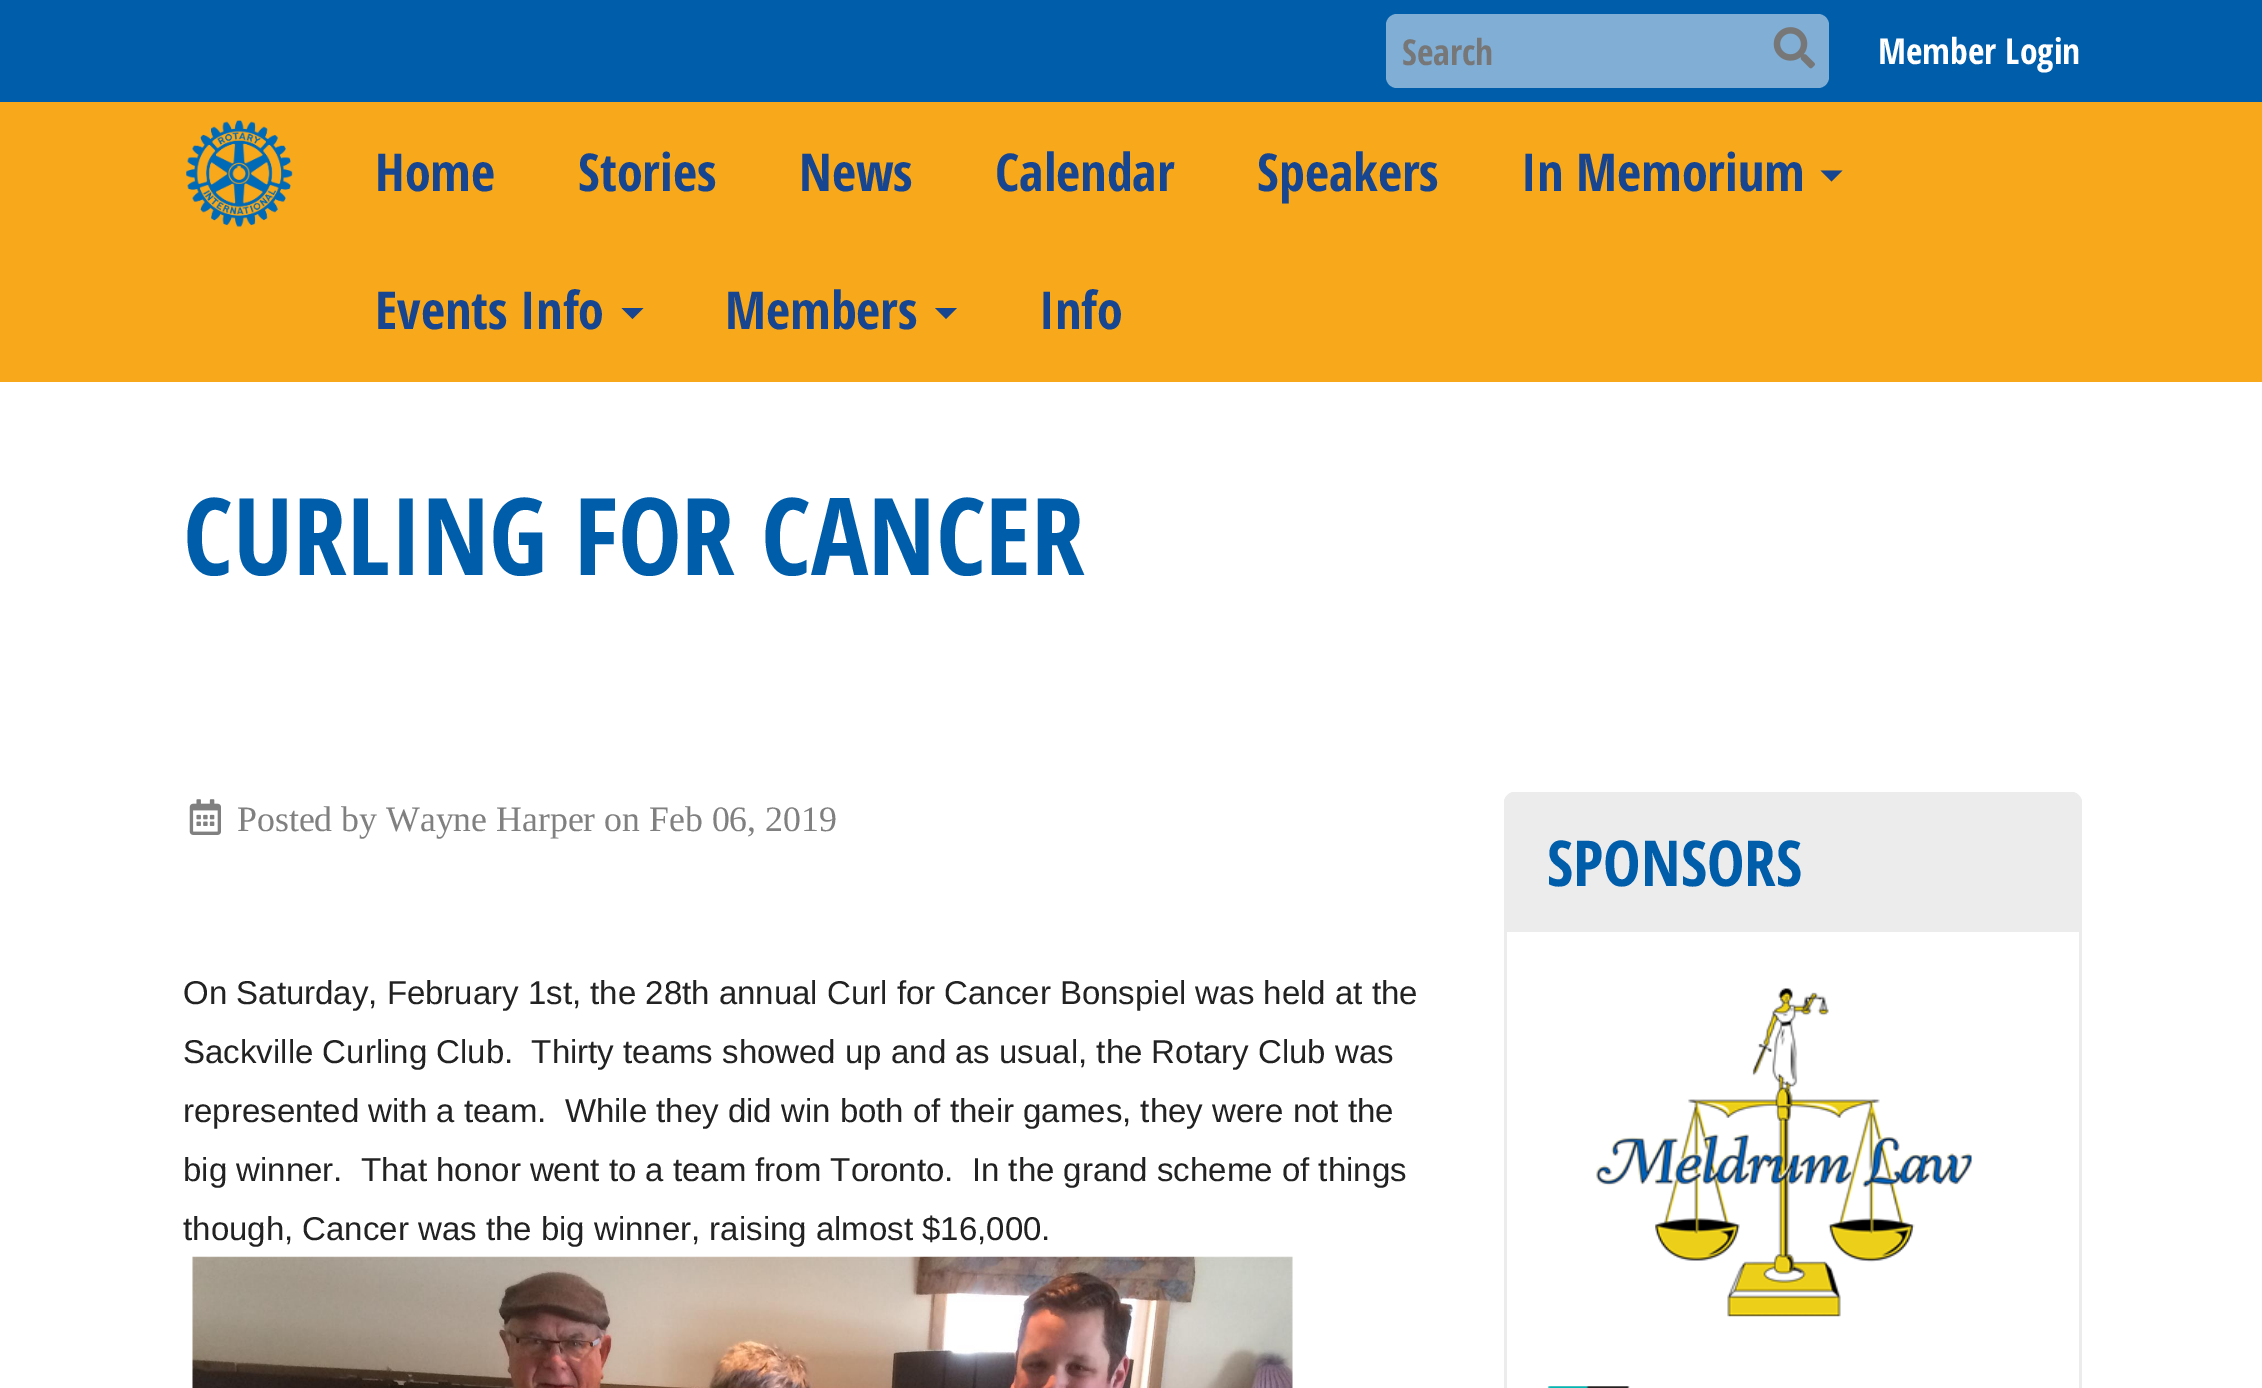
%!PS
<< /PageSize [2262 1388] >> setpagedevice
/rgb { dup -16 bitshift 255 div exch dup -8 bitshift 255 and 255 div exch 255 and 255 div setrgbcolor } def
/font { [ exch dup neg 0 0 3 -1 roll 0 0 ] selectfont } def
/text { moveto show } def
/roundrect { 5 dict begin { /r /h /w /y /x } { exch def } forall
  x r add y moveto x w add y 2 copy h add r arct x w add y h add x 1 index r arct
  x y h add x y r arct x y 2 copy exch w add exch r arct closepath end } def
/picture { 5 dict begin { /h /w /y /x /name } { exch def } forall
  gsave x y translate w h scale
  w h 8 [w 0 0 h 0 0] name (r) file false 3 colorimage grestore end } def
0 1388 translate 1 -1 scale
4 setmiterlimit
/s1 { /OpenSansCondensed-Bold 35.75 font 16#777777 rgb } def
/s2 { /OpenSansCondensed-Bold 35.75 font 16#FFFFFF rgb } def
/s3 { /OpenSansCondensed-Bold 52.25 font 16#17458F rgb } def
/s4 { /OpenSansCondensed-Bold 107.25 font 16#005DAA rgb } def
/s5 { /LiberationSerif-Regular 35.75 font 16#808080 rgb } def
/s6 { /LiberationSans-Regular 33 font 16#222222 rgb } def
/s7 { /OpenSansCondensed-Bold 63.25 font 16#005DAA rgb } def
16#FFFFFF rgb
0 0 2262 1388 rectfill
16#005DAA rgb
0 0 2262 102 rectfill
16#80AED5 rgb
1386 14 443 74 11 roundrect fill
gsave
1403 28 346 49 rectclip
s1
(Search) 1402 65 text
grestore
(pic1.raw) 1773 27 42 42 picture
s2
(Member Login) 1878 64 text
16#F7A81B rgb
0 102 2262 280 rectfill
(pic2.raw) 186 120 107 107 picture
s3
(Home) 375 191 text
(Stories) 578 191 text
(News) 799 191 text
(Calendar) 995 191 text
(Speakers) 1257 191 text
(In Memorium) 1521 191 text
1820.5 170.5 moveto 1842.5 170.5 lineto 1831.5 181.5 lineto closepath fill
(Events Info) 375 329 text
621.5 308 moveto 643.5 308 lineto 632.5 319 lineto closepath fill
(Members) 725 329 text
935 308 moveto 957 308 lineto 946 319 lineto closepath fill
(Info) 1039 329 text
s4
(CURLING FOR CANCER) 183 575 text
(pic3.raw) 189 799 32 36 picture
s5
(Posted by Wayne Harper on Feb 06, 2019) 237 831 text
s6
(On Saturday, February 1st, the 28th annual Curl for Cancer Bonspiel was held at the) 183 1004 text
(Sackville Curling Club.  Thirty teams showed up and as usual, the Rotary Club was) 183 1063 text
(represented with a team.  While they did win both of their games, they were not the) 183 1122 text
(big winner.  That honor went to a team from Toronto.  In the grand scheme of things) 183 1181 text
(though, Cancer was the big winner, raising almost $16,000.) 183 1240 text
(pic4.raw) 192 1256 1101 132 picture
16#ECECEC rgb
1515 792 moveto 2071 792 lineto 2077 792 2082 797 2082 803 curveto 2082 932 lineto 1504 932 lineto 1504 803 lineto 1504 797 1509 792 1515 792 curveto closepath fill
1515 792 moveto 2071 792 lineto 2077 792 2082 797 2082 803 curveto 2082 932 lineto 1504 932 lineto 1504 803 lineto 1504 797 1509 792 1515 792 curveto closepath 1515 795 moveto 2071 795 lineto 2075 795 2079 798 2079 803 curveto 2079 932 lineto 1507 932 lineto 1507 803 lineto 1507 798 1511 795 1515 795 curveto closepath eofill
s7
(SPONSORS) 1547 886 text
16#ECECEC rgb
1504 932 moveto 2082 932 lineto 2082 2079 lineto 2082 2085 2077 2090 2071 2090 curveto 1515 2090 lineto 1509 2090 1504 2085 1504 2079 curveto closepath 1507 932 moveto 2079 932 lineto 2079 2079 lineto 2079 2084 2075 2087 2071 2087 curveto 1515 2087 lineto 1511 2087 1507 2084 1507 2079 curveto closepath eofill
(pic5.raw) 1596 988 376 329 picture
(pic6.raw) 1548 1386 82 2 picture
showpage
